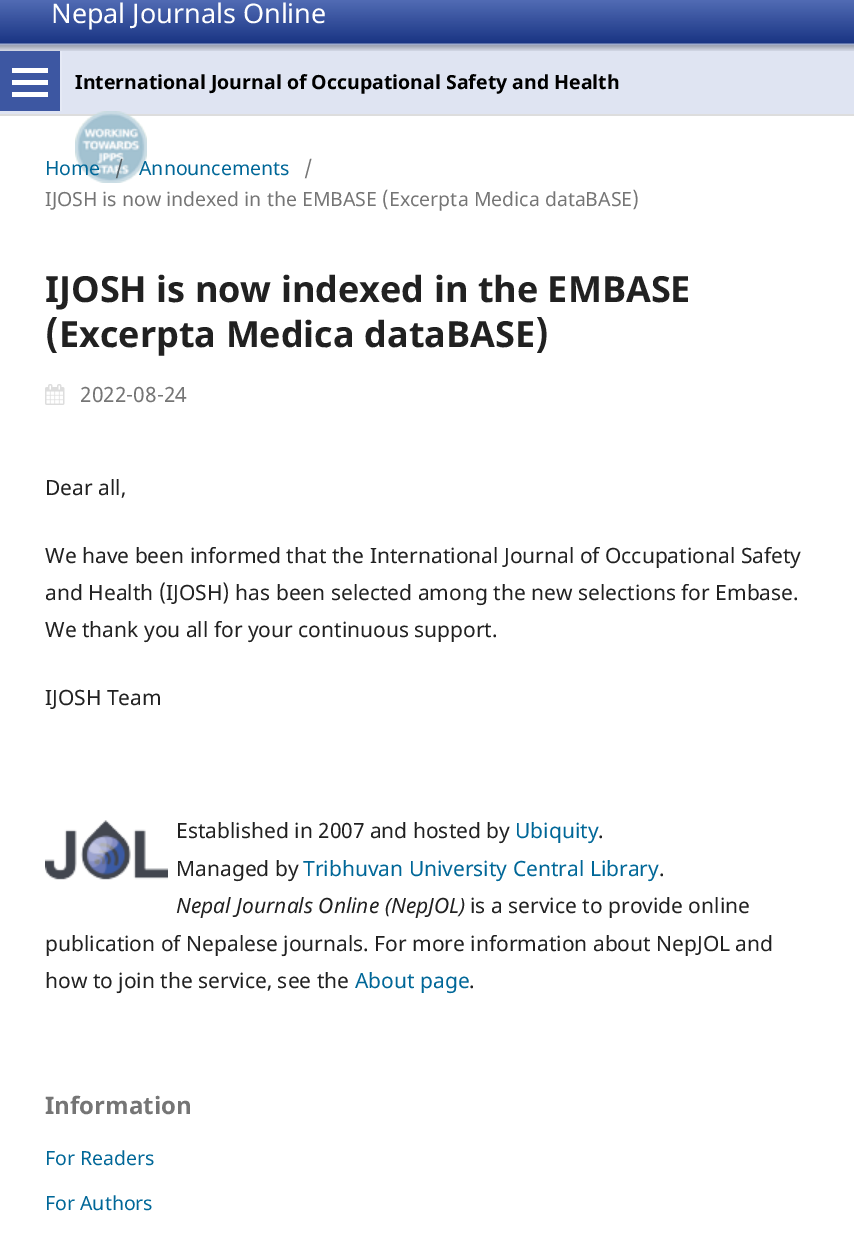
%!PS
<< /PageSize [854 1247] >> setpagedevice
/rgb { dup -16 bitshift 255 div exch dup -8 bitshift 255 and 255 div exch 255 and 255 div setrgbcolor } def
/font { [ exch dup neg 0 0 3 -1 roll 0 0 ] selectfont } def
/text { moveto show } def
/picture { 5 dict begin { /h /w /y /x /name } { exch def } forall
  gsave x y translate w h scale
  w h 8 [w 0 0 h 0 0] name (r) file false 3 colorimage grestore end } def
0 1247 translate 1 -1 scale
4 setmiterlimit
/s1 { /NotoSans-Regular 27 font 16#FFFFFF rgb } def
/s2 { /NotoSans-Bold 19.5 font 16#000000 rgb } def
/s3 { /NotoSans-Regular 19.5 font 16#006798 rgb } def
/s4 { /NotoSans-Regular 19.5 font 16#576166 rgb } def
/s5 { /NotoSans-Regular 19.5 font 16#757575 rgb } def
/s6 { /NotoSans-Bold 36 font 16#212121 rgb } def
/s7 { /NotoSans-Regular 21 font 16#757575 rgb } def
/s8 { /NotoSans-Regular 21 font 16#212121 rgb } def
/s9 { /NotoSans-Regular 21 font 16#006798 rgb } def
/s10 { /NotoSans-Italic 21 font 16#212121 rgb } def
/s11 { /NotoSans-Bold 24 font 16#757575 rgb } def
16#FFFFFF rgb
0 0 854 1247 rectfill
16#DFE4F2 rgb
0 51 854 63 rectfill
16#DDDDDD rgb
0 114 854 2 rectfill
(pic1.raw) 0 0 854 51 picture
s1
(Nepal Journals Online) 51 23 text
16#E5E9F5 rgb
60 51 2 60 rectfill
16#3D57A2 rgb
0 51 60 60 rectfill
16#FFFFFF rgb
12 92 36 5 rectfill
12 68 36 5 rectfill
12 80 36 5 rectfill
s2
(International Journal of Occupational Safety and Health) 75 89 text
(pic2.raw) 75 111 72 72 picture
s3
(Home) 45 175 text
s4
(/) 115 175 text
s3
(Announcements) 139 175 text
s5
(/) 304 175 text
(IJOSH is now indexed in the EMBASE \(Excerpta Medica dataBASE\)) 45 206 text
s6
(IJOSH is now indexed in the EMBASE) 45 302 text
(\(Excerpta Medica dataBASE\)) 45 347 text
(pic3.raw) 45 384 20 21 picture
s7
(2022-08-24) 80 402 text
s8
(Dear all,) 45 495 text
(We have been informed that the International Journal of Occupational Safety) 45 563 text
(and Health \(IJOSH\) has been selected among the new selections for Embase.) 45 600 text
(We thank you all for your continuous support.) 45 637 text
(IJOSH Team) 45 705 text
(pic4.raw) 45 820 123 60 picture
(Established in 2007 and hosted by) 176 838 text
s9
(Ubiquity) 515 838 text
s8
(.) 598 838 text
(Managed by) 176 876 text
s9
(Tribhuvan University Central Library) 303 876 text
s8
(.) 659 876 text
s10
(Nepal Journals Online \(NepJOL\)) 176 913 text
s8
(is a service to provide online) 470 913 text
(publication of Nepalese journals. For more information about NepJOL and) 45 951 text
(how to join the service, see the) 45 988 text
s9
(About page) 355 988 text
s8
(.) 469 988 text
s11
(Information) 45 1114 text
s3
(For Readers) 45 1165 text
(For Authors) 45 1210 text
showpage
